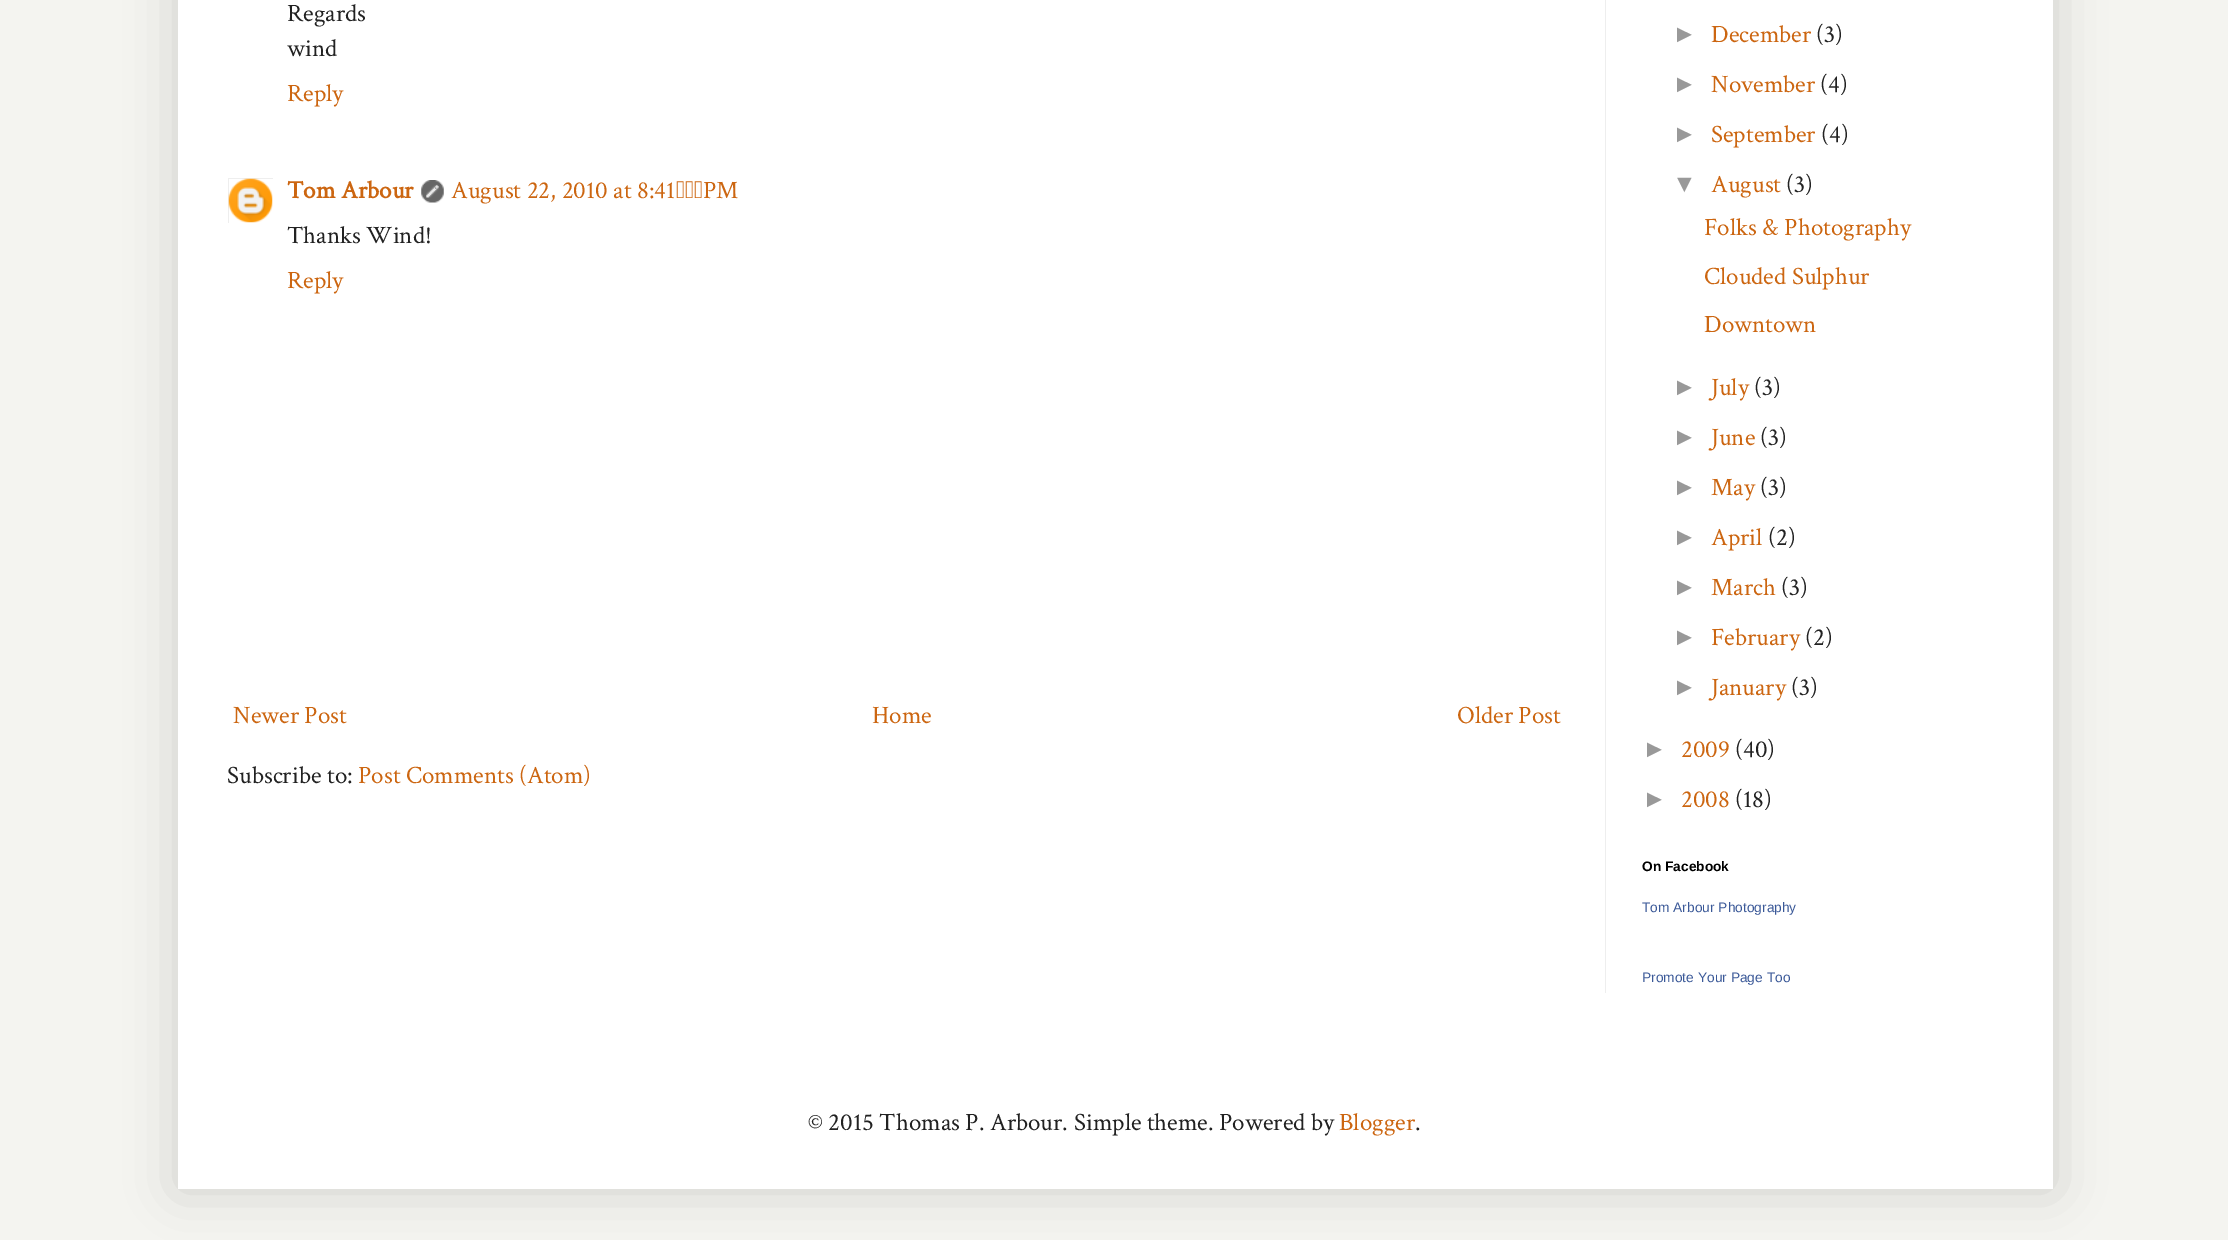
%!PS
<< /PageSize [2228 1240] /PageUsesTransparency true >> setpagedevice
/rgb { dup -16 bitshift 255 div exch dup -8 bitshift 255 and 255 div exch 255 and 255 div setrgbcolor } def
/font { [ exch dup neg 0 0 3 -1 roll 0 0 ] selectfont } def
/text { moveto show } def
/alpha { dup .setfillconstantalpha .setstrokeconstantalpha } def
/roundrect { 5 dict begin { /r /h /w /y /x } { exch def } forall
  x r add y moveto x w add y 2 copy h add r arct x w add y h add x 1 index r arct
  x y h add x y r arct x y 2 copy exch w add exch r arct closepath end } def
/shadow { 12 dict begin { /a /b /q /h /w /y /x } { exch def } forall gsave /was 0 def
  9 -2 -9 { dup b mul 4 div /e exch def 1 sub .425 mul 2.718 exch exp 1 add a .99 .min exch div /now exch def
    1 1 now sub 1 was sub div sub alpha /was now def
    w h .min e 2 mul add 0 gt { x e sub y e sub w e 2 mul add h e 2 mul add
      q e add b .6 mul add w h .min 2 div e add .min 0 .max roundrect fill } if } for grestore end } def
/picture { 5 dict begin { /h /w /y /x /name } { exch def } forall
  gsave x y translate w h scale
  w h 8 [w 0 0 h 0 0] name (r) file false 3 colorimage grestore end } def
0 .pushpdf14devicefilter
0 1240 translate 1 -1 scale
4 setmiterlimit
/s1 { /CrimsonText-Regular 25 font 16#222222 rgb } def
/s2 { /CrimsonText-Regular 25 font 16#CC6611 rgb } def
/s3 { /CrimsonText-Bold 25 font 16#CC6611 rgb } def
/s4 { /LiberationSans-Regular 25 font 16#999999 rgb } def
/s5 { /LiberationSans-Bold 13.75 font 16#000000 rgb } def
/s6 { /LiberationSans-Regular 13.75 font 16#3B5998 rgb } def
16#F4F4F0 rgb
0 0 2228 1240 rectfill
16#000000 rgb
178 -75 1875 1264 0 25 0.15 shadow
16#FFFFFF rgb
178 0 1875 1189 rectfill
16#EEEEEE rgb
1605 0 1 993 rectfill
s1
(Regards) 287 21 text
(wind) 287 56 text
s2
(Reply) 287 101 text
gsave
228 178 45 45 rectclip
16#EEEEEE rgb
228.5 178.5 45 45 rectstroke
grestore
(pic1.raw) 228 178 45 45 picture
s3
(Tom Arbour) 287 198 text
(pic2.raw) 421 180 23 23 picture
s2
(August 22, 2010 at 8:41 PM) 451 198 text
s1
(Thanks Wind!) 287 243 text
s2
(Reply) 287 288 text
(Newer Post) 233 723 text
(Home) 872 723 text
(Older Post) 1457 723 text
s1
(Subscribe to:) 227 783 text
s2
(Post Comments \(Atom\)) 358 783 text
s4
(►) 1672 42 text
s2
(December) 1711 42 text
s1
(\(3\)) 1816 42 text
s4
(►) 1672 92 text
s2
(November) 1711 92 text
s1
(\(4\)) 1820 92 text
s4
(►) 1672 142 text
s2
(September) 1711 142 text
s1
(\(4\)) 1821 142 text
s4
(▼) 1672 192 text
s2
(August) 1711 192 text
s1
(\(3\)) 1786 192 text
s2
(Folks & Photography) 1704 235 text
(Clouded Sulphur) 1704 284 text
(Downtown) 1704 332 text
s4
(►) 1672 395 text
s2
(July) 1711 395 text
s1
(\(3\)) 1754 395 text
s4
(►) 1672 445 text
s2
(June) 1711 445 text
s1
(\(3\)) 1760 445 text
s4
(►) 1672 495 text
s2
(May) 1711 495 text
s1
(\(3\)) 1760 495 text
s4
(►) 1672 545 text
s2
(April) 1711 545 text
s1
(\(2\)) 1768 545 text
s4
(►) 1672 595 text
s2
(March) 1711 595 text
s1
(\(3\)) 1781 595 text
s4
(►) 1672 645 text
s2
(February) 1711 645 text
s1
(\(2\)) 1805 645 text
s4
(►) 1672 695 text
s2
(January) 1711 695 text
s1
(\(3\)) 1791 695 text
s4
(►) 1642 757 text
s2
(2009) 1681 757 text
s1
(\(40\)) 1735 757 text
s4
(►) 1642 807 text
s2
(2008) 1681 807 text
s1
(\(18\)) 1735 807 text
s5
(On Facebook) 1642 871 text
s6
(Tom Arbour Photography) 1642 912 text
(Promote Your Page Too) 1642 982 text
s1
(© 2015 Thomas P. Arbour. Simple theme. Powered by) 808 1130 text
s2
(Blogger) 1339 1130 text
s1
(.) 1415 1130 text
.poppdf14devicefilter showpage
